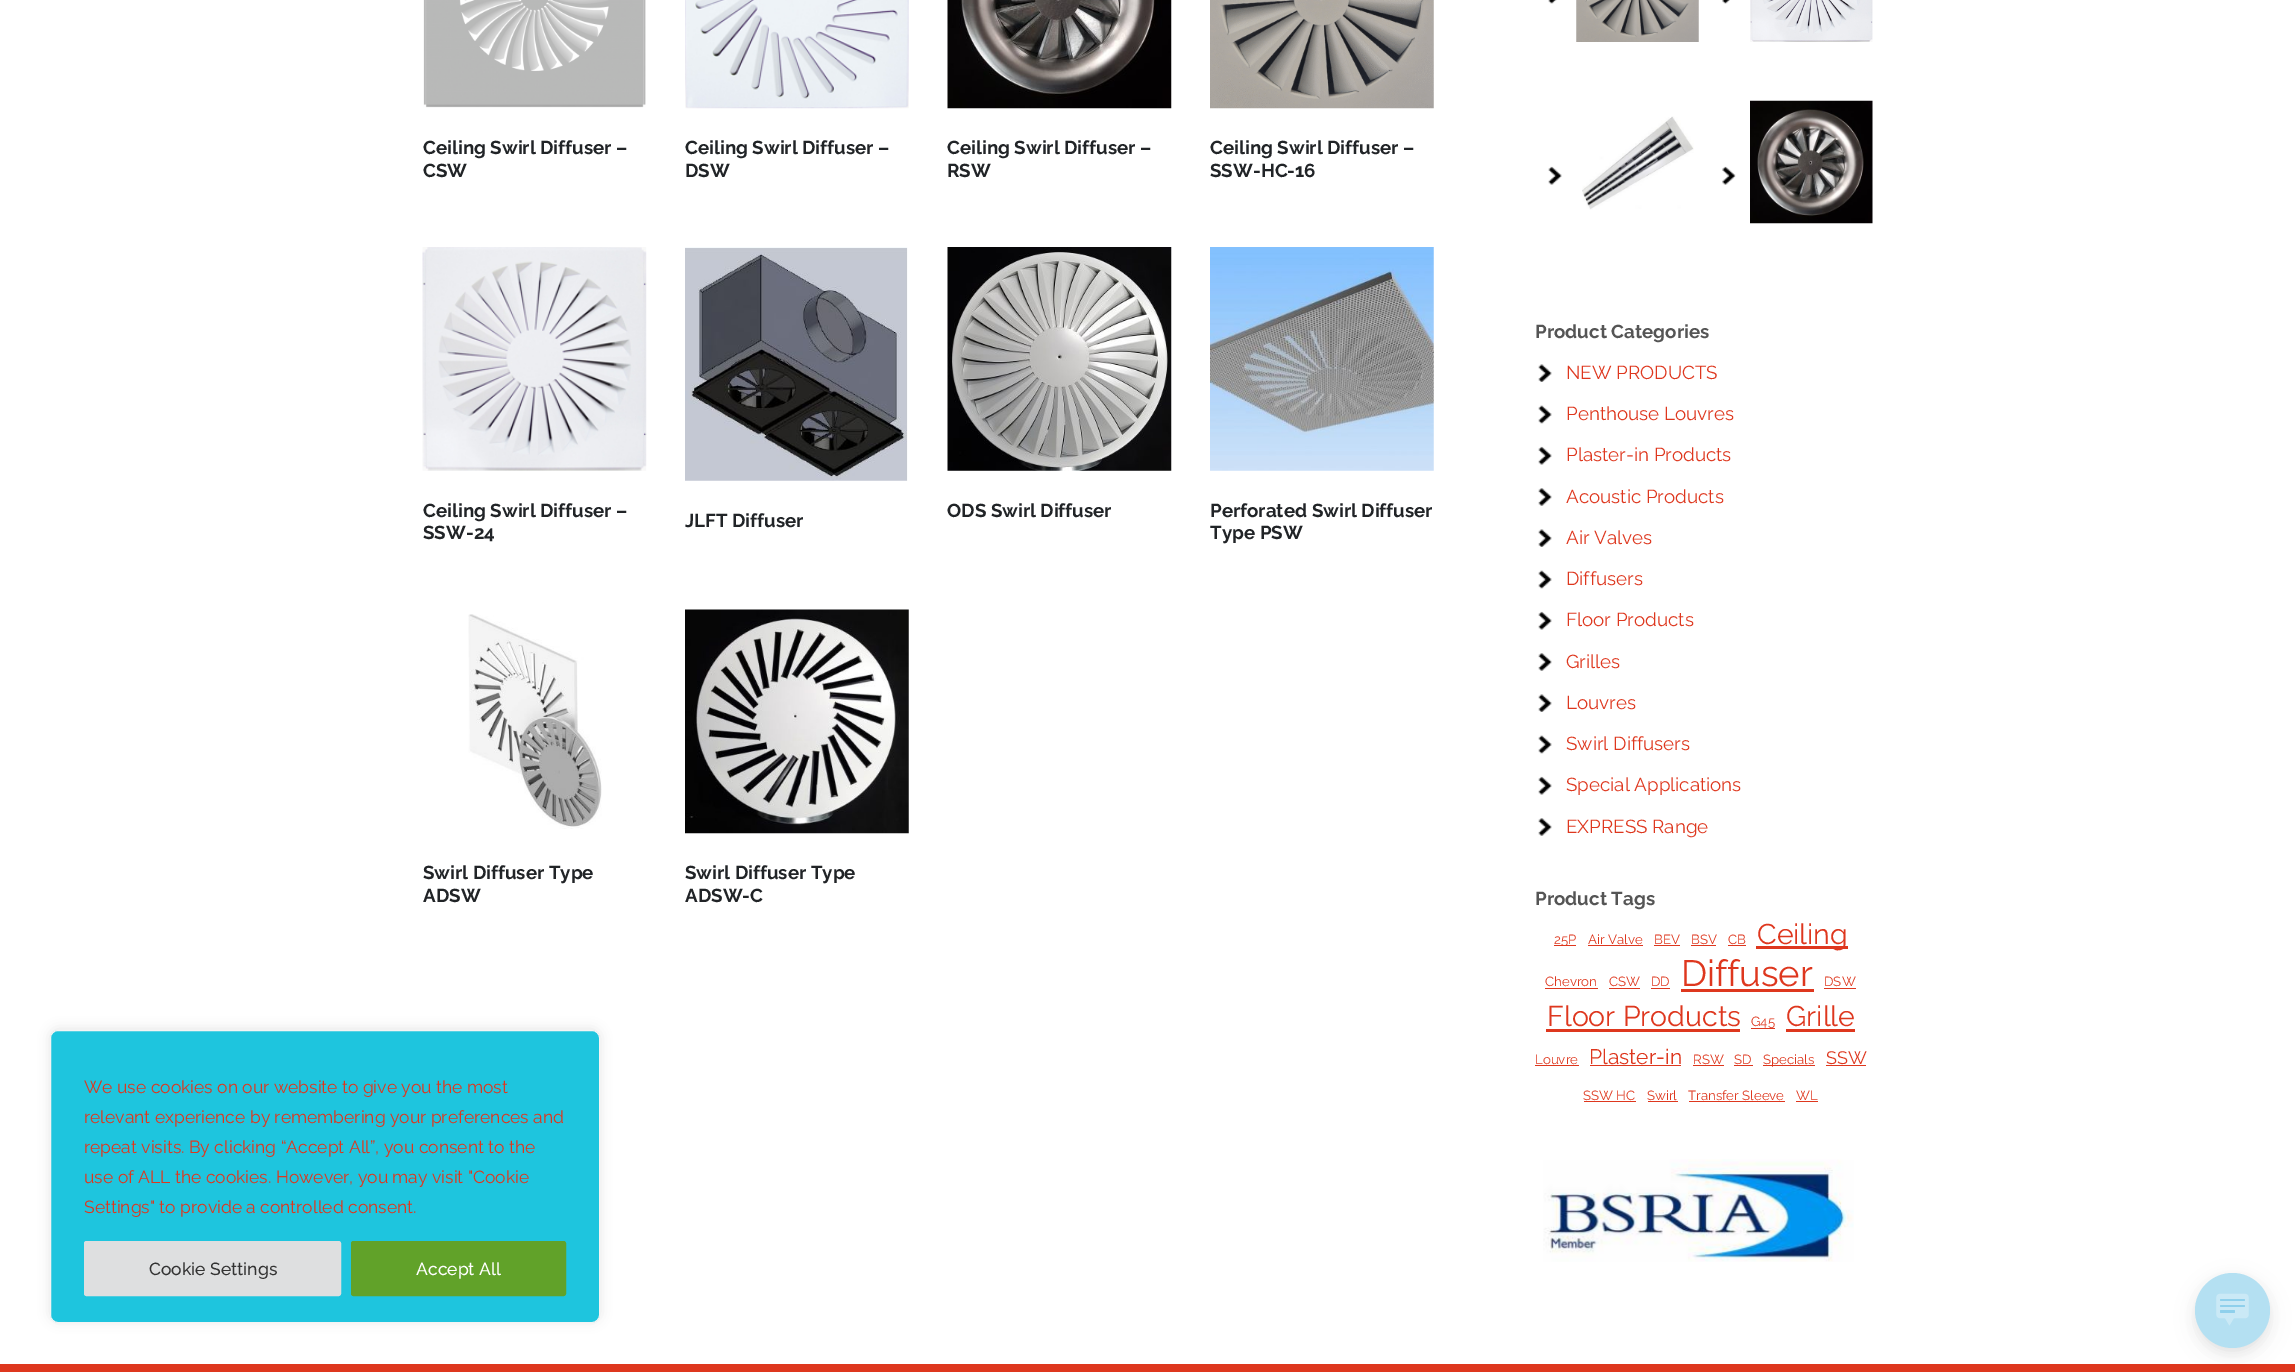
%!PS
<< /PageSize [2295 1372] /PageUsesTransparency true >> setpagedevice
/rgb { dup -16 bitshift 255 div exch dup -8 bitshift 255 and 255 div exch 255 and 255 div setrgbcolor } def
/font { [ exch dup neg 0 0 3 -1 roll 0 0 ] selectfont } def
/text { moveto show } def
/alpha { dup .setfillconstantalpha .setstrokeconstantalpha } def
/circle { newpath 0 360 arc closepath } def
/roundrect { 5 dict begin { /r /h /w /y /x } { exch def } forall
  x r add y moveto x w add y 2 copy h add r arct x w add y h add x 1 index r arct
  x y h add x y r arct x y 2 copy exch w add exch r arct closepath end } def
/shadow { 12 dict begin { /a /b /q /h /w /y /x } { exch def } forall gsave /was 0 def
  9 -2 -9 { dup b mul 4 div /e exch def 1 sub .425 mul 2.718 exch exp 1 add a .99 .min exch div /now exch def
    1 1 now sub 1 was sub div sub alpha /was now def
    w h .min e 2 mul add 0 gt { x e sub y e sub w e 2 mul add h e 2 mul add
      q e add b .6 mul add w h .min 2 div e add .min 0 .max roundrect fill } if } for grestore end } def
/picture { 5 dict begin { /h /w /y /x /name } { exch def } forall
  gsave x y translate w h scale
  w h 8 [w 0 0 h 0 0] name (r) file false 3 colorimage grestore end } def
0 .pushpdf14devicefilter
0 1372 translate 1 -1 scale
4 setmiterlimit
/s1 { /Raleway-Bold 18.75 font 16#212427 rgb } def
/s2 { /Raleway-Bold 18.75 font 16#555555 rgb } def
/s3 { /Raleway-Regular 18.75 font 16#DE371E rgb } def
/s4 { /Raleway-Regular 13.25 font 16#DE371E rgb } def
/s5 { /Raleway-Regular 28.5 font 16#DE371E rgb } def
/s6 { /Raleway-Regular 36.5 font 16#DE371E rgb } def
/s7 { /Raleway-Regular 21 font 16#DE371E rgb } def
/s8 { /Raleway-Regular 18 font 16#DE371E rgb } def
/s9 { /Raleway-Regular 17.5 font 16#DE371E rgb } def
/s10 { /Raleway-Medium 17.5 font 16#333333 rgb } def
/s11 { /Raleway-Medium 17.5 font 16#FFFFFF rgb } def
16#FFFFFF rgb
0 0 2295 1372 rectfill
(pic1.raw) 423 0 223 108 picture
s1
(Ceiling Swirl Diffuser –) 423 154 text
(CSW) 423 177 text
(pic2.raw) 685 0 224 109 picture
(Ceiling Swirl Diffuser –) 685 154 text
(DSW) 685 177 text
(pic3.raw) 947 0 225 109 picture
(Ceiling Swirl Diffuser –) 947 154 text
(RSW) 947 177 text
(pic4.raw) 1210 0 224 109 picture
(Ceiling Swirl Diffuser –) 1210 154 text
(SSW-HC-16) 1210 177 text
(pic5.raw) 422 247 225 224 picture
(Ceiling Swirl Diffuser –) 423 517 text
(SSW-24) 423 539 text
(pic6.raw) 685 247 223 234 picture
(JLFT Diffuser) 685 527 text
(pic7.raw) 947 247 225 224 picture
(ODS Swirl Diffuser) 947 517 text
(pic8.raw) 1210 247 224 224 picture
(Perforated Swirl Diffuser) 1210 517 text
(Type PSW) 1210 539 text
(pic9.raw) 468 614 134 215 picture
(Swirl Diffuser Type) 423 879 text
(ADSW) 423 902 text
(pic10.raw) 685 609 224 225 picture
(Swirl Diffuser Type) 685 879 text
(ADSW-C) 685 902 text
(pic11.raw) 1548 0 9 4 picture
(pic12.raw) 1576 0 123 42 picture
(pic13.raw) 1722 0 8 4 picture
(pic14.raw) 1750 0 123 42 picture
(pic15.raw) 1548 166 14 19 picture
(pic16.raw) 1582 116 112 94 picture
(pic17.raw) 1722 166 14 19 picture
(pic18.raw) 1750 100 123 124 picture
s2
(Product Categories) 1535 338 text
(pic19.raw) 1538 364 14 18 picture
s3
(NEW PRODUCTS) 1566 379 text
(pic20.raw) 1538 405 14 19 picture
(Penthouse Louvres) 1566 420 text
(pic15.raw) 1538 446 14 19 picture
(Plaster-in Products) 1566 461 text
(pic21.raw) 1538 488 14 18 picture
(Acoustic Products) 1566 503 text
(pic19.raw) 1538 529 14 18 picture
(Air Valves) 1566 544 text
(pic20.raw) 1538 570 14 19 picture
(Diffusers) 1566 585 text
(pic15.raw) 1538 611 14 19 picture
(Floor Products) 1566 626 text
(pic21.raw) 1538 653 14 18 picture
(Grilles) 1566 668 text
(pic19.raw) 1538 694 14 18 picture
(Louvres) 1566 709 text
(pic20.raw) 1538 735 14 19 picture
(Swirl Diffusers) 1566 750 text
(pic15.raw) 1538 776 14 19 picture
(Special Applications) 1566 791 text
(pic21.raw) 1538 818 14 18 picture
(EXPRESS Range) 1566 833 text
s2
(Product Tags) 1535 905 text
16#DE371E rgb
1554 945 22 1 rectfill
s4
(25P) 1554 944 text
(Air Valve) 1588 944 text
1588 945 55 1 rectfill
(BEV) 1654 944 text
1654 945 26 1 rectfill
(BSV) 1691 944 text
1691 945 25 1 rectfill
(CB) 1728 944 text
1728 945 18 1 rectfill
1756 946 92 3 rectfill
s5
(Ceiling) 1757 944 text
s4
(Chevron) 1545 986 text
1545 988 53 1 rectfill
(CSW) 1609 986 text
1609 988 31 1 rectfill
(DD) 1651 986 text
1651 988 19 1 rectfill
s6
(Diffuser) 1681 986 text
1681 989 133 3 rectfill
s4
(DSW) 1824 986 text
1824 988 32 1 rectfill
s5
(Floor Products) 1547 1026 text
1546 1029 194 3 rectfill
s4
(G45) 1751 1026 text
1751 1028 24 1 rectfill
s5
(Grille) 1786 1026 text
1786 1029 69 3 rectfill
s4
(Louvre) 1535 1064 text
1535 1065 44 1 rectfill
s7
(Plaster-in) 1589 1064 text
1590 1065 91 1 rectfill
s4
(RSW) 1693 1064 text
1693 1065 31 1 rectfill
(SD) 1734 1064 text
1734 1065 19 1 rectfill
1763 1065 52 1 rectfill
(Specials) 1763 1064 text
s8
(SSW) 1826 1064 text
1826 1065 40 1 rectfill
s4
(SSW HC) 1583 1100 text
1584 1101 52 1 rectfill
(Swirl) 1647 1100 text
1648 1101 30 1 rectfill
(Transfer Sleeve) 1688 1100 text
1689 1101 96 1 rectfill
(WL) 1796 1100 text
1796 1101 22 1 rectfill
(pic22.raw) 1543 1159 311 103 picture
16#ACABAB rgb
50 1029 550 292 8 6 0.3 shadow
16#1EC5DE rgb
50.5 1030.5 549 292 7.5 roundrect gsave fill grestore
16#F4F4F4 rgb
stroke
s9
(We use cookies on our website to give you the most) 84 1093 text
(relevant experience by remembering your preferences and) 84 1123 text
(repeat visits. By clicking “Accept All”, you consent to the) 84 1153 text
(use of ALL the cookies. However, you may visit "Cookie) 84 1183 text
(Settings" to provide a controlled consent.) 84 1213 text
16#DEDFE0 rgb
85.5 1242.5 254 52 1 roundrect gsave fill grestore
3 setlinewidth
stroke
s10
(Cookie Settings) 149 1275 text
16#61A229 rgb
352.5 1242.5 212 52 1 roundrect gsave fill grestore
stroke
s11
(Accept All) 416 1275 text
16#DE371E rgb
0 1364 2295 8 rectfill
16#000000 rgb
2195 1280 75 75 37.5 12.5 0.06 shadow
16#B3B3B3 rgb
2195 1278 75 75 37.5 5 0.2 shadow
16#B4E0F2 rgb
2232.5 1310.5 37.5 circle fill
(pic23.raw) 2216 1293 33 33 picture
.poppdf14devicefilter showpage
